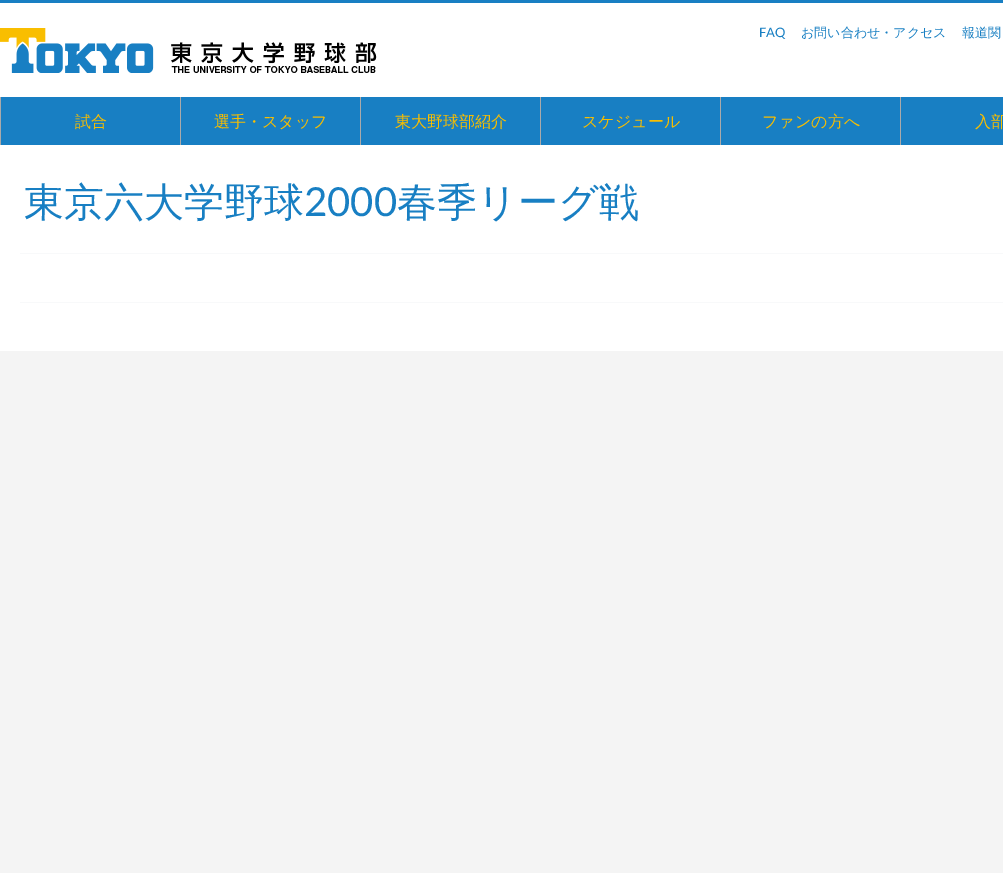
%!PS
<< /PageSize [1003 873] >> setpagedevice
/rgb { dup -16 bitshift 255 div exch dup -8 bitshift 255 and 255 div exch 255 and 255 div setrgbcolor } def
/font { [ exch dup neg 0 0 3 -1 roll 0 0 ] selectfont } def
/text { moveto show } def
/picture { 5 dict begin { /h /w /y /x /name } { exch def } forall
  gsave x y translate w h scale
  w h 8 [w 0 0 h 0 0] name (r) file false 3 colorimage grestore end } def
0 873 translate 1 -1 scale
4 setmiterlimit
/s1 { /Lato-Regular 13 font 16#187FC3 rgb } def
/s2 { /WenQuanYiZenHei-Medium 13 font 16#187FC3 rgb } def
/s3 { /WenQuanYiZenHei-Medium 16 font 16#F9BE00 rgb } def
/s4 { /WenQuanYiZenHei-Medium 40 font 16#187FC3 rgb } def
/s5 { /Lato-Regular 40 font 16#187FC3 rgb } def
16#F4F4F4 rgb
0 0 1003 873 rectfill
16#FFFFFF rgb
0 3 1003 94 rectfill
16#187FC3 rgb
0 0 1003 3 rectfill
(pic1.raw) 0 28 377 45 picture
s1
(FAQ) 759 37 text
s2
(お問い合わせ・アクセス) 801 37 text
(報道関) 962 37 text
1 97 179 48 rectfill
16#AAAAAA rgb
0 97 1 48 rectfill
s3
(試合) 75 127 text
16#187FC3 rgb
181 97 179 48 rectfill
16#AAAAAA rgb
180 97 1 48 rectfill
s3
(選手・スタッフ) 214 127 text
16#187FC3 rgb
361 97 179 48 rectfill
16#AAAAAA rgb
360 97 1 48 rectfill
s3
(東大野球部紹介) 395 127 text
16#187FC3 rgb
541 97 179 48 rectfill
16#AAAAAA rgb
540 97 1 48 rectfill
s3
(スケジュール) 582 127 text
16#187FC3 rgb
721 97 179 48 rectfill
16#AAAAAA rgb
720 97 1 48 rectfill
s3
(ファンの方へ) 762 127 text
16#187FC3 rgb
901 97 102 48 rectfill
16#AAAAAA rgb
900 97 1 48 rectfill
s3
(入部) 975 127 text
16#FFFFFF rgb
0 145 1003 206 rectfill
16#F8F9FA rgb
20 253 983 1 rectfill
s4
(東京六大学野球) 24 216 text
s5
(2000) 304 216 text
s4
(春季リーグ戦) 397 216 text
16#F8F9FA rgb
20 302 983 1 rectfill
showpage
